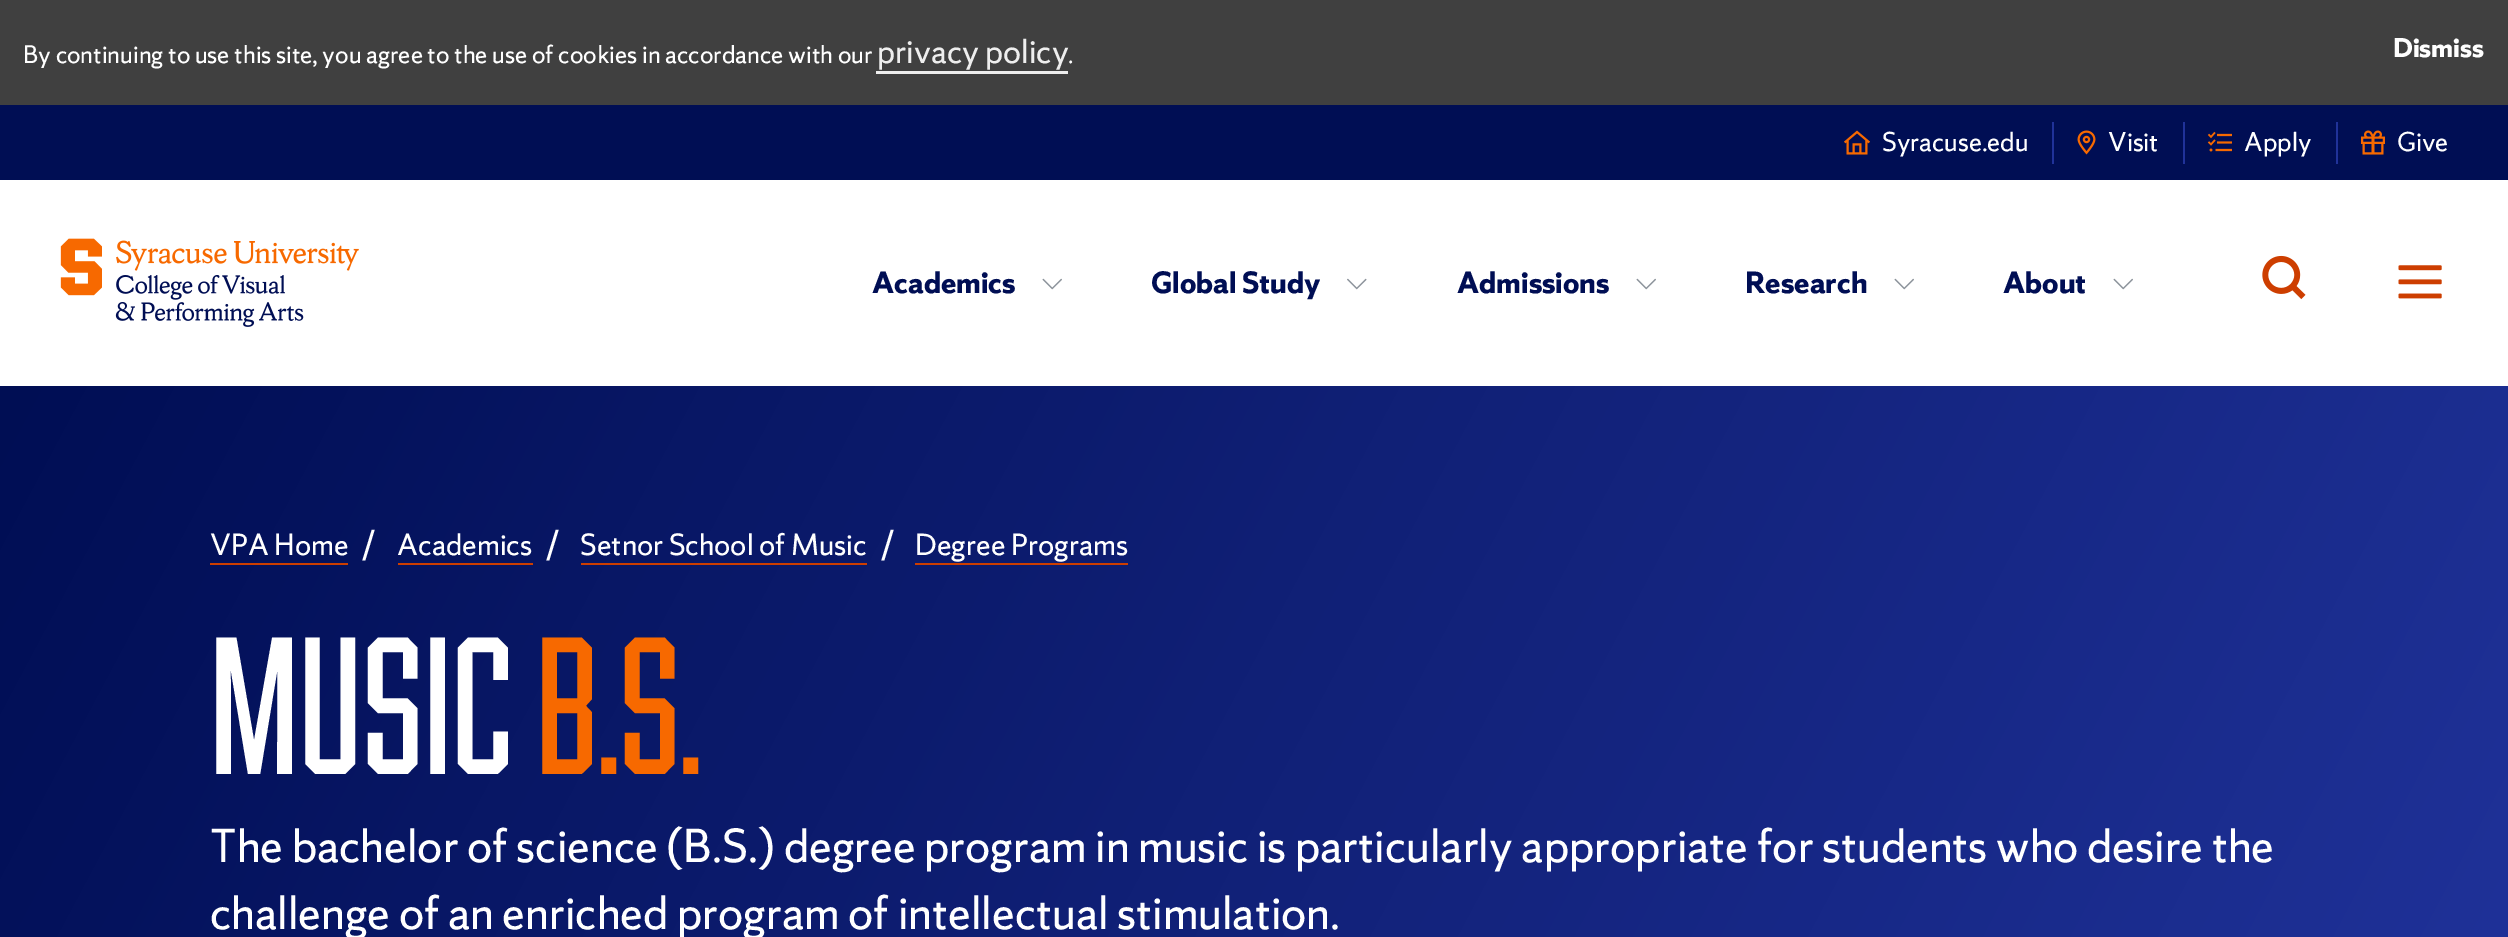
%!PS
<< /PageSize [2508 937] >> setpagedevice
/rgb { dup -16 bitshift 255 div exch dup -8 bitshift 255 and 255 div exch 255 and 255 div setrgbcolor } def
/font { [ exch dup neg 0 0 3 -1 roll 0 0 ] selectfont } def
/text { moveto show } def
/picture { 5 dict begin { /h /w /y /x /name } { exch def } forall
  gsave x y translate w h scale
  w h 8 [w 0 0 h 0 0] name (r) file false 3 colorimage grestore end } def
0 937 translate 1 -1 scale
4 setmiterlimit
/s1 { /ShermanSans-Regular 22.5 font 16#FFFFFF rgb } def
/s2 { /ShermanSans-Regular 30 font 16#EEEEEE rgb } def
/s3 { /ShermanSans-Bold 24 font 16#FFFFFF rgb } def
/s4 { /ShermanSans-Regular 24 font 16#FFFFFF rgb } def
/s5 { /ShermanSans-Bold 27 font 16#000E54 rgb } def
/s6 { /ShermanSans-Regular 27 font 16#FFFFFF rgb } def
/s7 { /ShermanSans-Regular 30 font 16#FFFFFF rgb } def
/s8 { /ShermanSans-Regular 42 font 16#FFFFFF rgb } def
16#FFFFFF rgb
0 0 2508 937 rectfill
16#404040 rgb
0 0 2508 105 rectfill
s1
(By continuing to use this site, you agree to the use of cookies in accordance with our) 23 63 text
s2
(privacy policy) 877 63 text
876 71 192 3 rectfill
s1
(.) 1068 63 text
s3
(Dismiss) 2393 57 text
16#000E54 rgb
0 105 2508 75 rectfill
(pic1.raw) 1844 130 26 25 picture
s4
(Syracuse.edu) 1882 151 text
16#203299 rgb
2052 122 2 42 rectfill
(pic2.raw) 2077 130 19 25 picture
s4
(Visit) 2108 151 text
16#203299 rgb
2183 122 2 42 rectfill
(pic3.raw) 2207 131 25 21 picture
s4
(Apply) 2244 151 text
16#203299 rgb
2336 122 2 42 rectfill
(pic4.raw) 2361 130 24 25 picture
s4
(Give) 2397 151 text
(pic5.raw) 60 238 299 89 picture
s5
(Academics) 872 293 text
(pic6.raw) 1042 278 20 12 picture
(Global Study) 1151 293 text
(pic7.raw) 1347 278 20 12 picture
(Admissions) 1457 293 text
(pic6.raw) 1636 278 20 12 picture
(Research) 1745 293 text
(pic6.raw) 1894 278 20 12 picture
(About) 2003 293 text
(pic6.raw) 2113 278 20 12 picture
(pic8.raw) 2262 255 44 45 picture
(pic9.raw) 2398 265 44 34 picture
gsave 0 386 moveto 2508 386 lineto 2508 937 lineto 0 937 lineto closepath clip newpath
<< /ShadingType 2 /ColorSpace /DeviceRGB /Coords [128 145 2380 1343] /Extend [true true] /Function << /FunctionType 3 /Domain [0 1] /Functions [<< /FunctionType 2 /Domain [0 1] /C0 [0 0.055 0.329] /C1 [0.125 0.196 0.6] /N 1 >> << /FunctionType 2 /Domain [0 1] /C0 [0.125 0.196 0.6] /C1 [0.125 0.196 0.6] /N 1 >>] /Bounds [0.99] /Encode [0 1 0 1] >> >> shfill grestore
s6
(VPA Home) 210 555 text
16#CD3E00 rgb
210 563 138 2 rectfill
s7
(/) 363 555 text
s6
(Academics) 397 555 text
16#CD3E00 rgb
398 563 135 2 rectfill
s7
(/) 547 555 text
s6
(Setnor School of Music) 580 555 text
16#CD3E00 rgb
581 563 286 2 rectfill
s7
(/) 882 555 text
s6
(Degree Programs) 915 555 text
16#CD3E00 rgb
915 563 213 2 rectfill
/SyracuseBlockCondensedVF-Medium 195 font
16#FFFFFF rgb
210 774 moveto 0.75 0 (MUSIC) ashow
16#F76900 rgb
536 774 moveto 0.75 0 (B.S.) ashow
s8
(The bachelor of science \(B.S.\) degree program in music is particularly appropriate for students who desire the) 210 862 text
(challenge of an enriched program of intellectual stimulation.) 210 929 text
showpage
